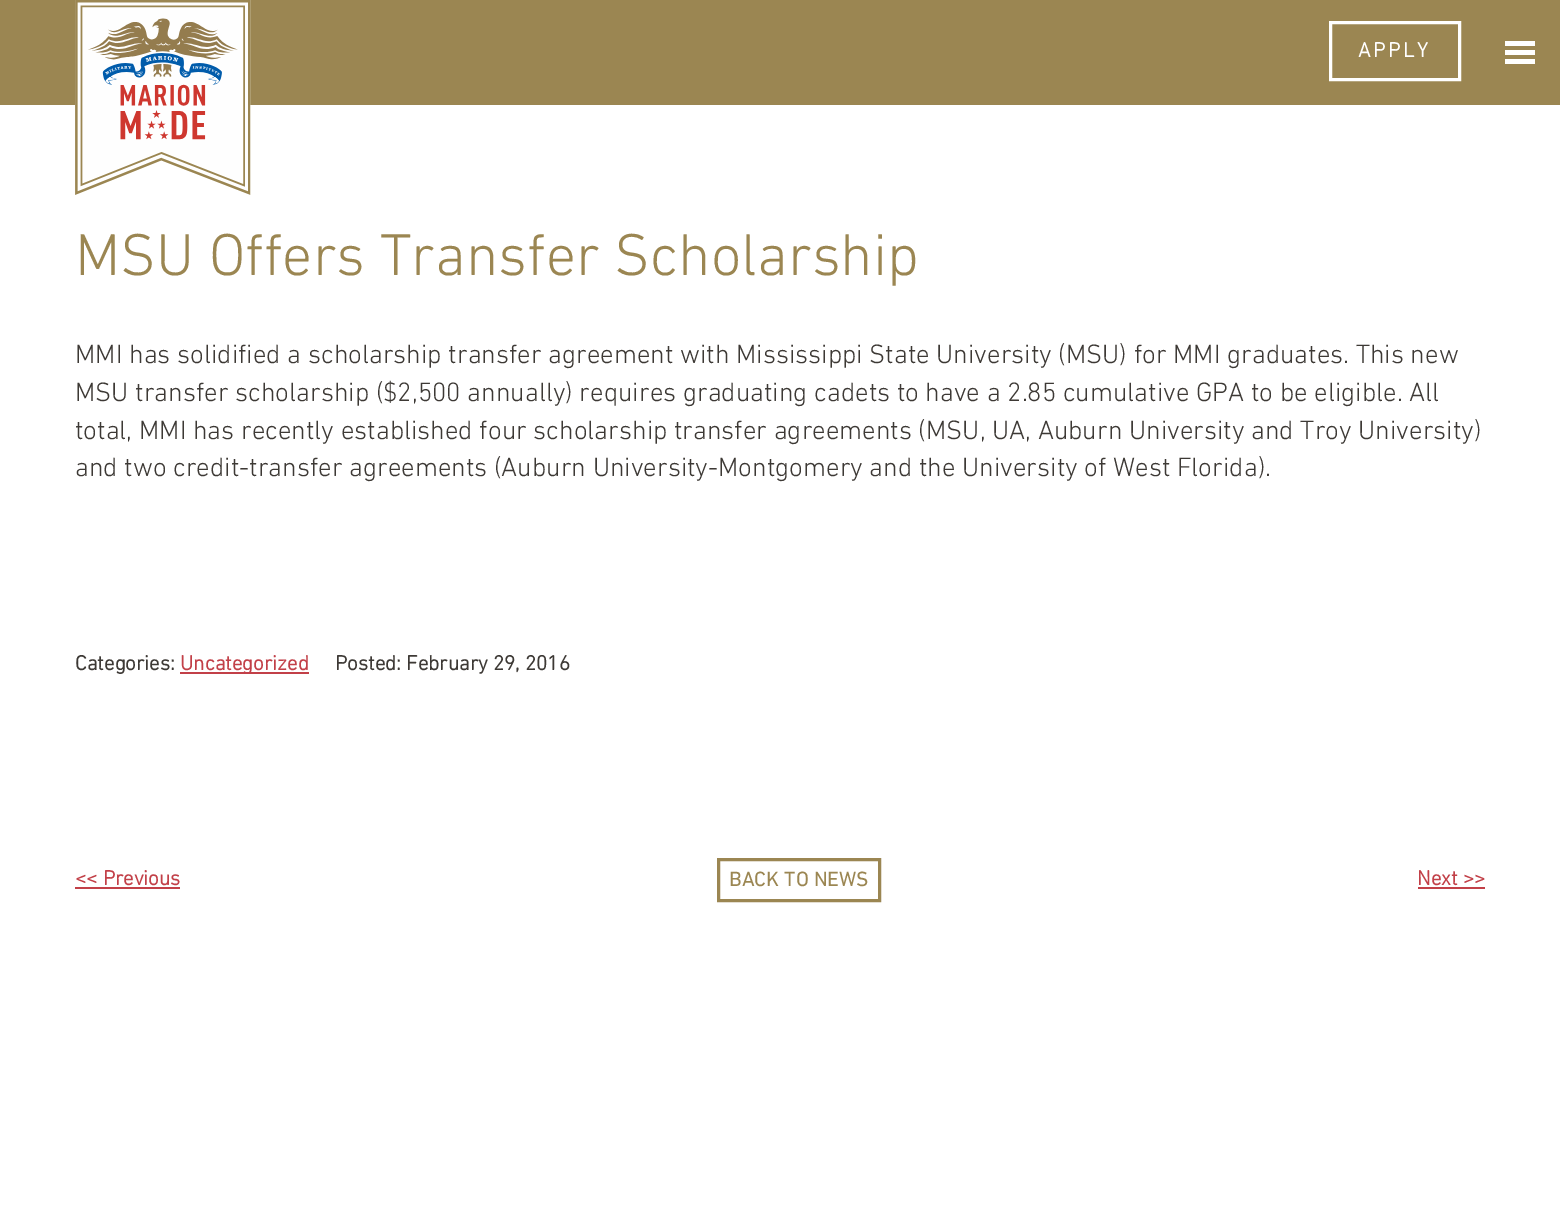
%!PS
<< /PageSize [1560 1207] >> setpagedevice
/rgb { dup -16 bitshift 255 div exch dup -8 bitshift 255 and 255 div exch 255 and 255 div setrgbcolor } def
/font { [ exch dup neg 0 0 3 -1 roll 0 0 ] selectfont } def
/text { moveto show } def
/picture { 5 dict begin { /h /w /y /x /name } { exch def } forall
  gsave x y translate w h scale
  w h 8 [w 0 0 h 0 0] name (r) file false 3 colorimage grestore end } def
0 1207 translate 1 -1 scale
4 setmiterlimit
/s1 { /DINNext-Light 60 font 16#9B8652 rgb } def
/s2 { /DINNext-Light 27 font 16#3D3935 rgb } def
/s3 { /DINNext-Bold 21 font 16#3D3935 rgb } def
/s4 { /DINNext-Bold 21 font 16#C24048 rgb } def
/s5 { /DINNext-Regular 21 font 16#9B8652 rgb } def
16#FFFFFF rgb
0 0 1560 1207 rectfill
16#9B8652 rgb
0 0 1560 105 rectfill
(pic1.raw) 75 0 176 195 picture
16#FFFFFF rgb
3 setlinewidth
1330.5 22.5 129 57 rectstroke
/DINNext-Bold 21 font
1358 57 moveto 2.75 0 (APPLY) ashow
1505 41 30 5 rectfill
1505 50 30 5 rectfill
1505 59 30 5 rectfill
s1
(MSU Offers Transfer Scholarship) 75 275 text
s2
(MMI has solidified a scholarship transfer agreement with Mississippi State University \(MSU\) for MMI graduates. This new) 75 363 text
(MSU transfer scholarship \($2,500 annually\) requires graduating cadets to have a 2.85 cumulative GPA to be eligible. All) 75 401 text
(total, MMI has recently established four scholarship transfer agreements \(MSU, UA, Auburn University and Troy University\)) 75 439 text
(and two credit-transfer agreements \(Auburn University-Montgomery and the University of West Florida\).) 75 476 text
s3
(Categories:) 75 670 text
16#C24048 rgb
180 672 129 2 rectfill
(Uncategorized) 180 670 text
s3
(Posted: February 29, 2016) 335 670 text
s4
(<< Previous) 75 885 text
75 887 105 2 rectfill
16#9B8652 rgb
718.5 859.5 161 41 rectstroke
s5
(BACK TO NEWS) 729 886 text
s4
(Next >>) 1417 885 text
1418 887 67 2 rectfill
showpage
